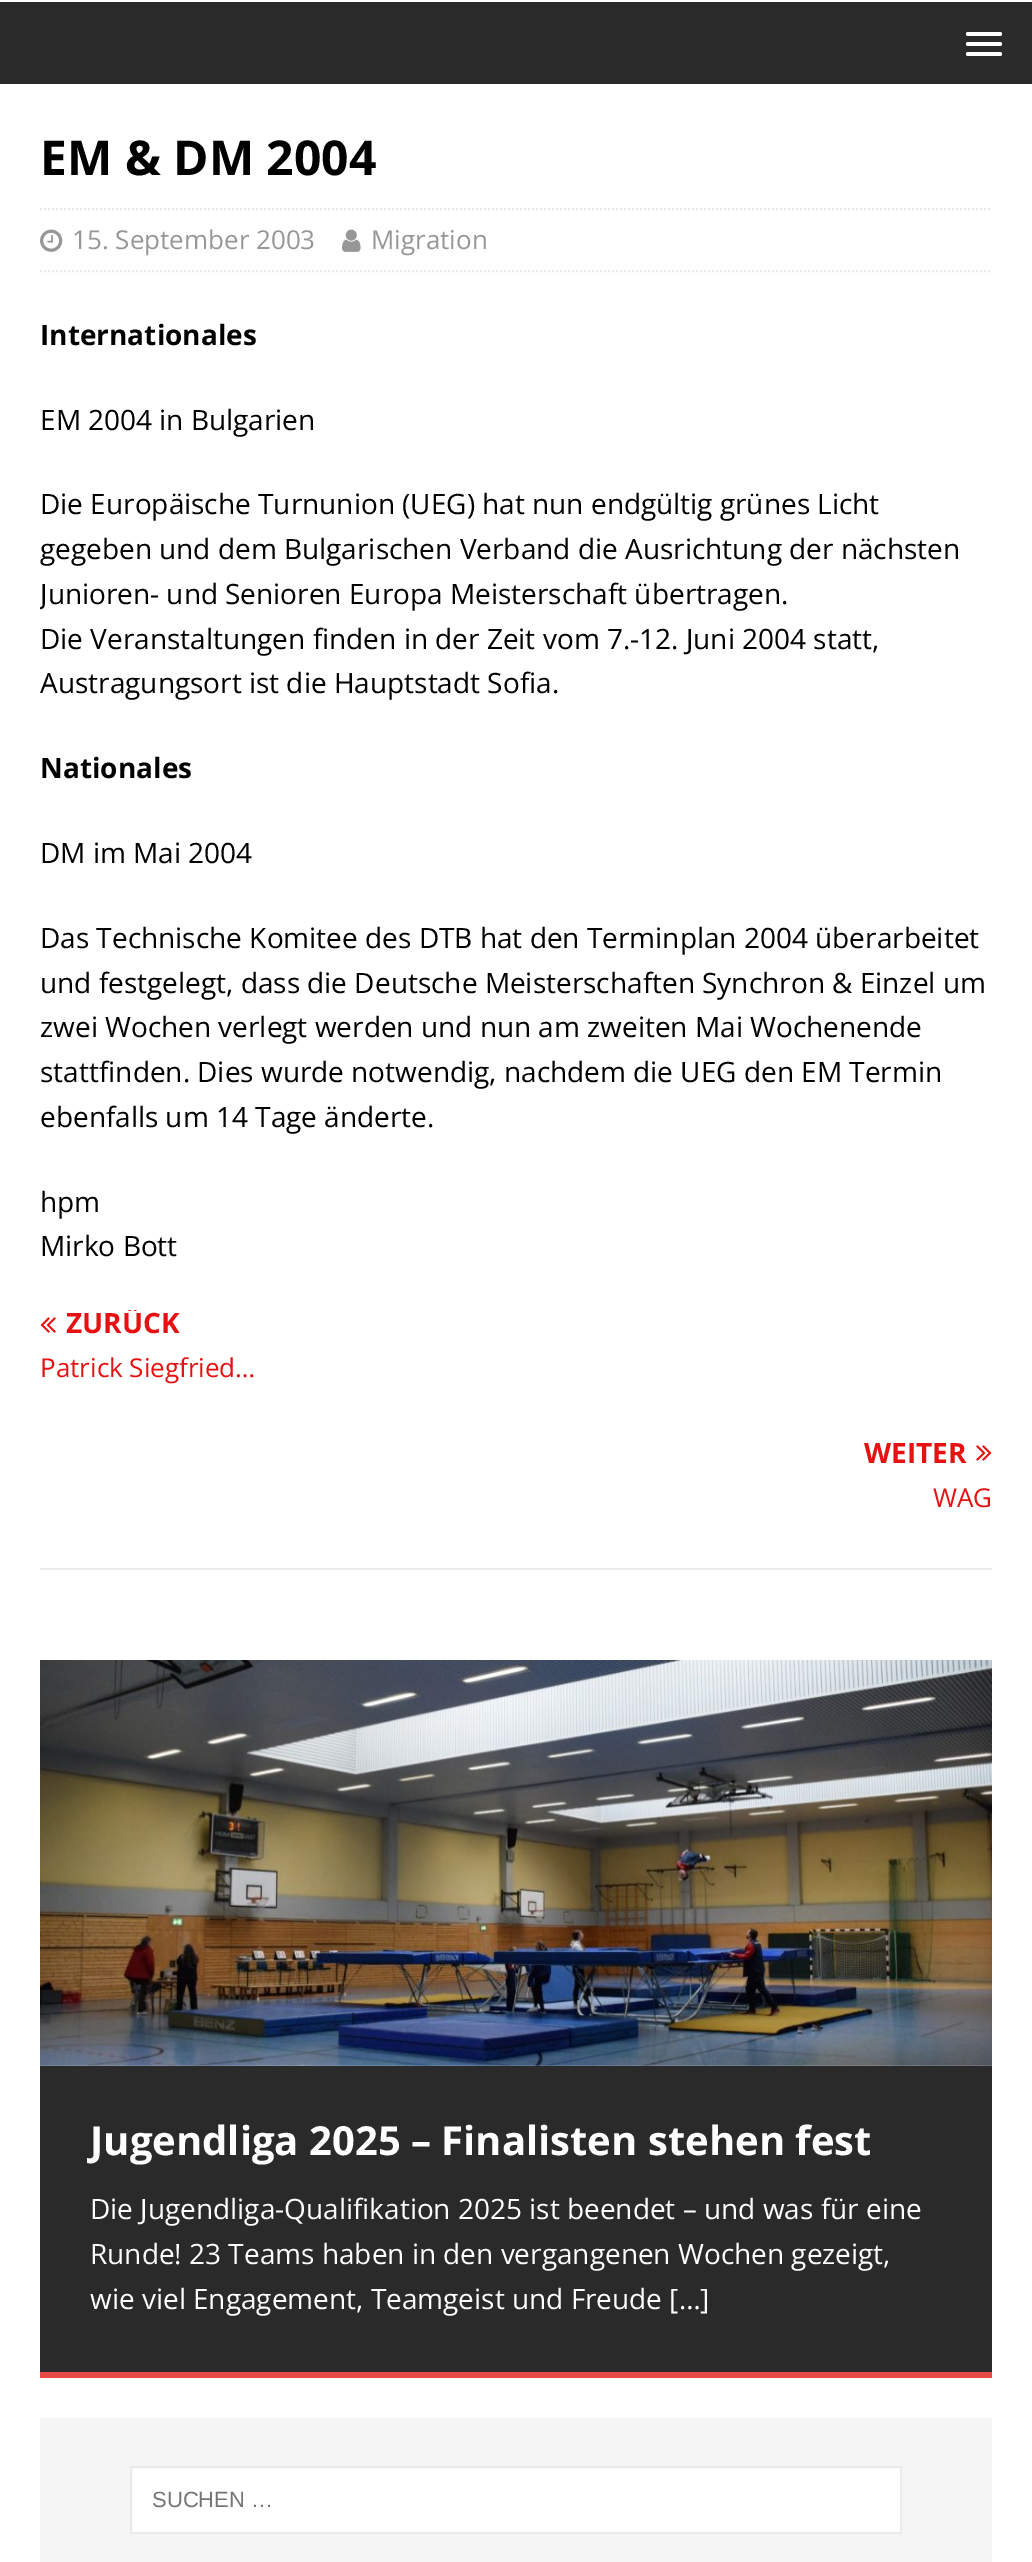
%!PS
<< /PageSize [1032 2562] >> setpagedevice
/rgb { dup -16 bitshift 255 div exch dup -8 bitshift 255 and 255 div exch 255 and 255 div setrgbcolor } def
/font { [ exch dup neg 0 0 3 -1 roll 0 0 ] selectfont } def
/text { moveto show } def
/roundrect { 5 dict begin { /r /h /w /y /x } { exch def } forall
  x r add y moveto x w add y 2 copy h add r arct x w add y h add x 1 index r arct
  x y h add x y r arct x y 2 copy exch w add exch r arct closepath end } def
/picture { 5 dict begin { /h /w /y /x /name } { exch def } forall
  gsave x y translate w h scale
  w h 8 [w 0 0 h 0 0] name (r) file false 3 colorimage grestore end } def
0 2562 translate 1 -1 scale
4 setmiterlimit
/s1 { /OpenSans-Bold 48 font 16#000000 rgb } def
/s2 { /OpenSans-Regular 26 font 16#979797 rgb } def
/s3 { /OpenSans-Bold 28 font 16#000000 rgb } def
/s4 { /OpenSans-Regular 28 font 16#000000 rgb } def
/s5 { /OpenSans-Bold 28 font 16#E61212 rgb } def
/s6 { /OpenSans-Regular 26 font 16#E61212 rgb } def
/s7 { /OpenSans-Bold 40 font 16#FFFFFF rgb } def
/s8 { /OpenSans-Regular 28 font 16#FFFFFF rgb } def
/s9 { /LiberationSans-Regular 22 font 16#757575 rgb } def
16#FFFFFF rgb
0 0 1032 2562 rectfill
16#2A2A2A rgb
0 2 1032 82 rectfill
16#FFFFFF rgb
966 32 36 4 2 roundrect fill
966 42 36 4 2 roundrect fill
966 52 36 4 2 roundrect fill
s1
(EM & DM 2004) 40 175 text
16#EBEBEB rgb
2 setlinewidth
[2 2] 0 setdash
40 209 moveto 992 209 lineto stroke
40 271 moveto 992 271 lineto stroke
(pic1.raw) 40 229 23 23 picture
s2
(15. September 2003) 72 249 text
(pic2.raw) 342 229 19 23 picture
(Migration) 371 249 text
s3
(Internationales) 40 345 text
s4
(EM 2004 in Bulgarien) 40 430 text
(Die Europäische Turnunion \(UEG\) hat nun endgültig grünes Licht) 40 514 text
(gegeben und dem Bulgarischen Verband die Ausrichtung der nächsten) 40 559 text
gsave
40 124 952 1496 rectclip
(Junioren- und Senioren Europa Meisterschaft übertragen.) 40 604 text
grestore
(Die Veranstaltungen finden in der Zeit vom 7.-12. Juni 2004 statt,) 40 649 text
(Austragungsort ist die Hauptstadt Sofia.) 40 693 text
s3
(Nationales) 40 778 text
s4
(DM im Mai 2004) 40 863 text
(Das Technische Komitee des DTB hat den Terminplan 2004 überarbeitet) 40 948 text
(und festgelegt, dass die Deutsche Meisterschaften Synchron & Einzel um) 40 993 text
(zwei Wochen verlegt werden und nun am zweiten Mai Wochenende) 40 1037 text
(stattfinden. Dies wurde notwendig, nachdem die UEG den EM Termin) 40 1082 text
(ebenfalls um 14 Tage änderte.) 40 1127 text
(hpm) 40 1212 text
(Mirko Bott) 40 1256 text
16#EBEBEB rgb
40 1568 952 2 rectfill
(pic3.raw) 40 1317 16 16 picture
gsave
40 1310 952 28 rectclip
s5
(ZURÜCK) 66 1333 text
grestore
s6
(Patrick Siegfried…) 40 1377 text
s5
(WEITER) 864 1463 text
(pic4.raw) 976 1445 16 16 picture
s6
(WAG) 933 1507 text
(pic5.raw) 40 1660 952 406 picture
16#2A2A2A rgb
40 2066 952 306 rectfill
16#E64946 rgb
40 2372 952 6 rectfill
s7
(Jugendliga 2025 – Finalisten stehen fest) 90 2155 text
s8
(Die Jugendliga-Qualifikation 2025 ist beendet – und was für eine) 90 2219 text
(Runde! 23 Teams haben in den vergangenen Wochen gezeigt,) 90 2264 text
(wie viel Engagement, Teamgeist und Freude […]) 90 2309 text
16#F5F5F5 rgb
40 2418 952 144 rectfill
16#FFFFFF rgb
131 2467 moveto 901 2467 lineto 901 2533 lineto 131 2533 lineto closepath gsave fill grestore
16#EBEBEB rgb
[] 0 setdash
stroke
s9
(SUCHEN …) 152 2507 text
showpage
